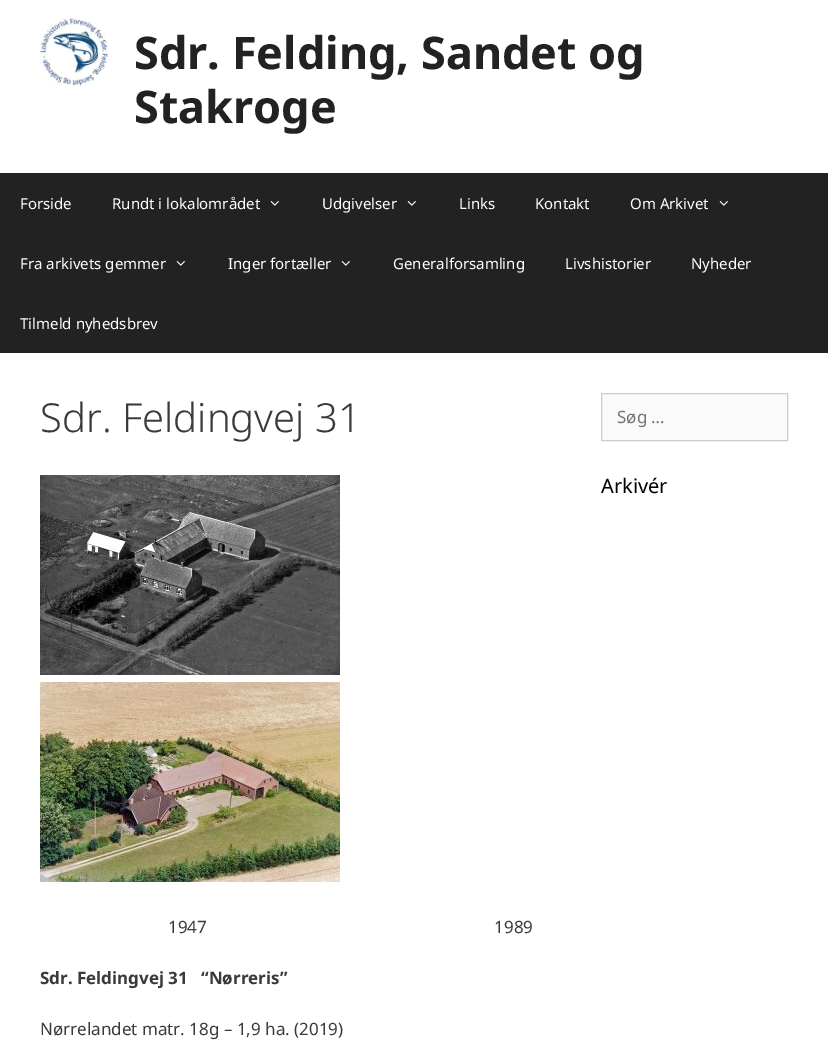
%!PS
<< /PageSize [828 1045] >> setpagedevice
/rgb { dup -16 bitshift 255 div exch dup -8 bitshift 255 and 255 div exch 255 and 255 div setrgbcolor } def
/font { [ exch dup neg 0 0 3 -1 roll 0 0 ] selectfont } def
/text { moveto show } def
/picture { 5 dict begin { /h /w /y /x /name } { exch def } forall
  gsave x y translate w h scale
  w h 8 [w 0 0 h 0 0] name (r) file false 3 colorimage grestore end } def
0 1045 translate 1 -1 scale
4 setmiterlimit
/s1 { /NotoSans-Bold 45 font 16#222222 rgb } def
/s2 { /NotoSans-Regular 15 font 16#FFFFFF rgb } def
/s3 { /NotoSans-Light 40 font 16#3A3A3A rgb } def
/s4 { /NotoSans-Regular 17 font 16#3A3A3A rgb } def
/s5 { /NotoSans-Bold 17 font 16#3A3A3A rgb } def
/s6 { /NotoSans-Regular 17 font 16#757575 rgb } def
/s7 { /NotoSans-Regular 20 font 16#000000 rgb } def
16#222222 rgb
0 0 828 1045 rectfill
16#FFFFFF rgb
0 0 828 173 rectfill
(pic1.raw) 40 18 68 68 picture
s1
(Sdr. Felding, Sandet og) 134 69 text
(Stakroge) 134 123 text
s2
(Forside) 20 209 text
(Rundt i lokalområdet) 112 209 text
(pic2.raw) 270 201 9 5 picture
(Udgivelser) 322 209 text
(pic2.raw) 407 201 9 5 picture
(Links) 459 209 text
(Kontakt) 535 209 text
(Om Arkivet) 630 209 text
(pic2.raw) 719 201 9 5 picture
(Fra arkivets gemmer) 20 269 text
(pic2.raw) 176 261 9 5 picture
(Inger fortæller) 228 269 text
(pic2.raw) 341 261 9 5 picture
(Generalforsamling) 393 269 text
(Livshistorier) 565 269 text
(Nyheder) 691 269 text
(Tilmeld nyhedsbrev) 20 329 text
0 353 828 692 rectfill
s3
(Sdr. Feldingvej 31) 40 432 text
(pic3.raw) 40 475 300 200 picture
(pic4.raw) 40 682 300 200 picture
s4
(1947                                                                 1989) 168 933 text
s5
(Sdr. Feldingvej 31   “Nørreris”) 40 984 text
s4
(Nørrelandet matr. 18g – 1,9 ha. \(2019\)) 40 1035 text
16#FAFAFA rgb
601.5 393.5 moveto 787.5 393.5 lineto 787.5 440.5 lineto 601.5 440.5 lineto closepath gsave fill grestore
16#CCCCCC rgb
stroke
s6
(Søg …) 617 423 text
s7
(Arkivér) 601 493 text
showpage
